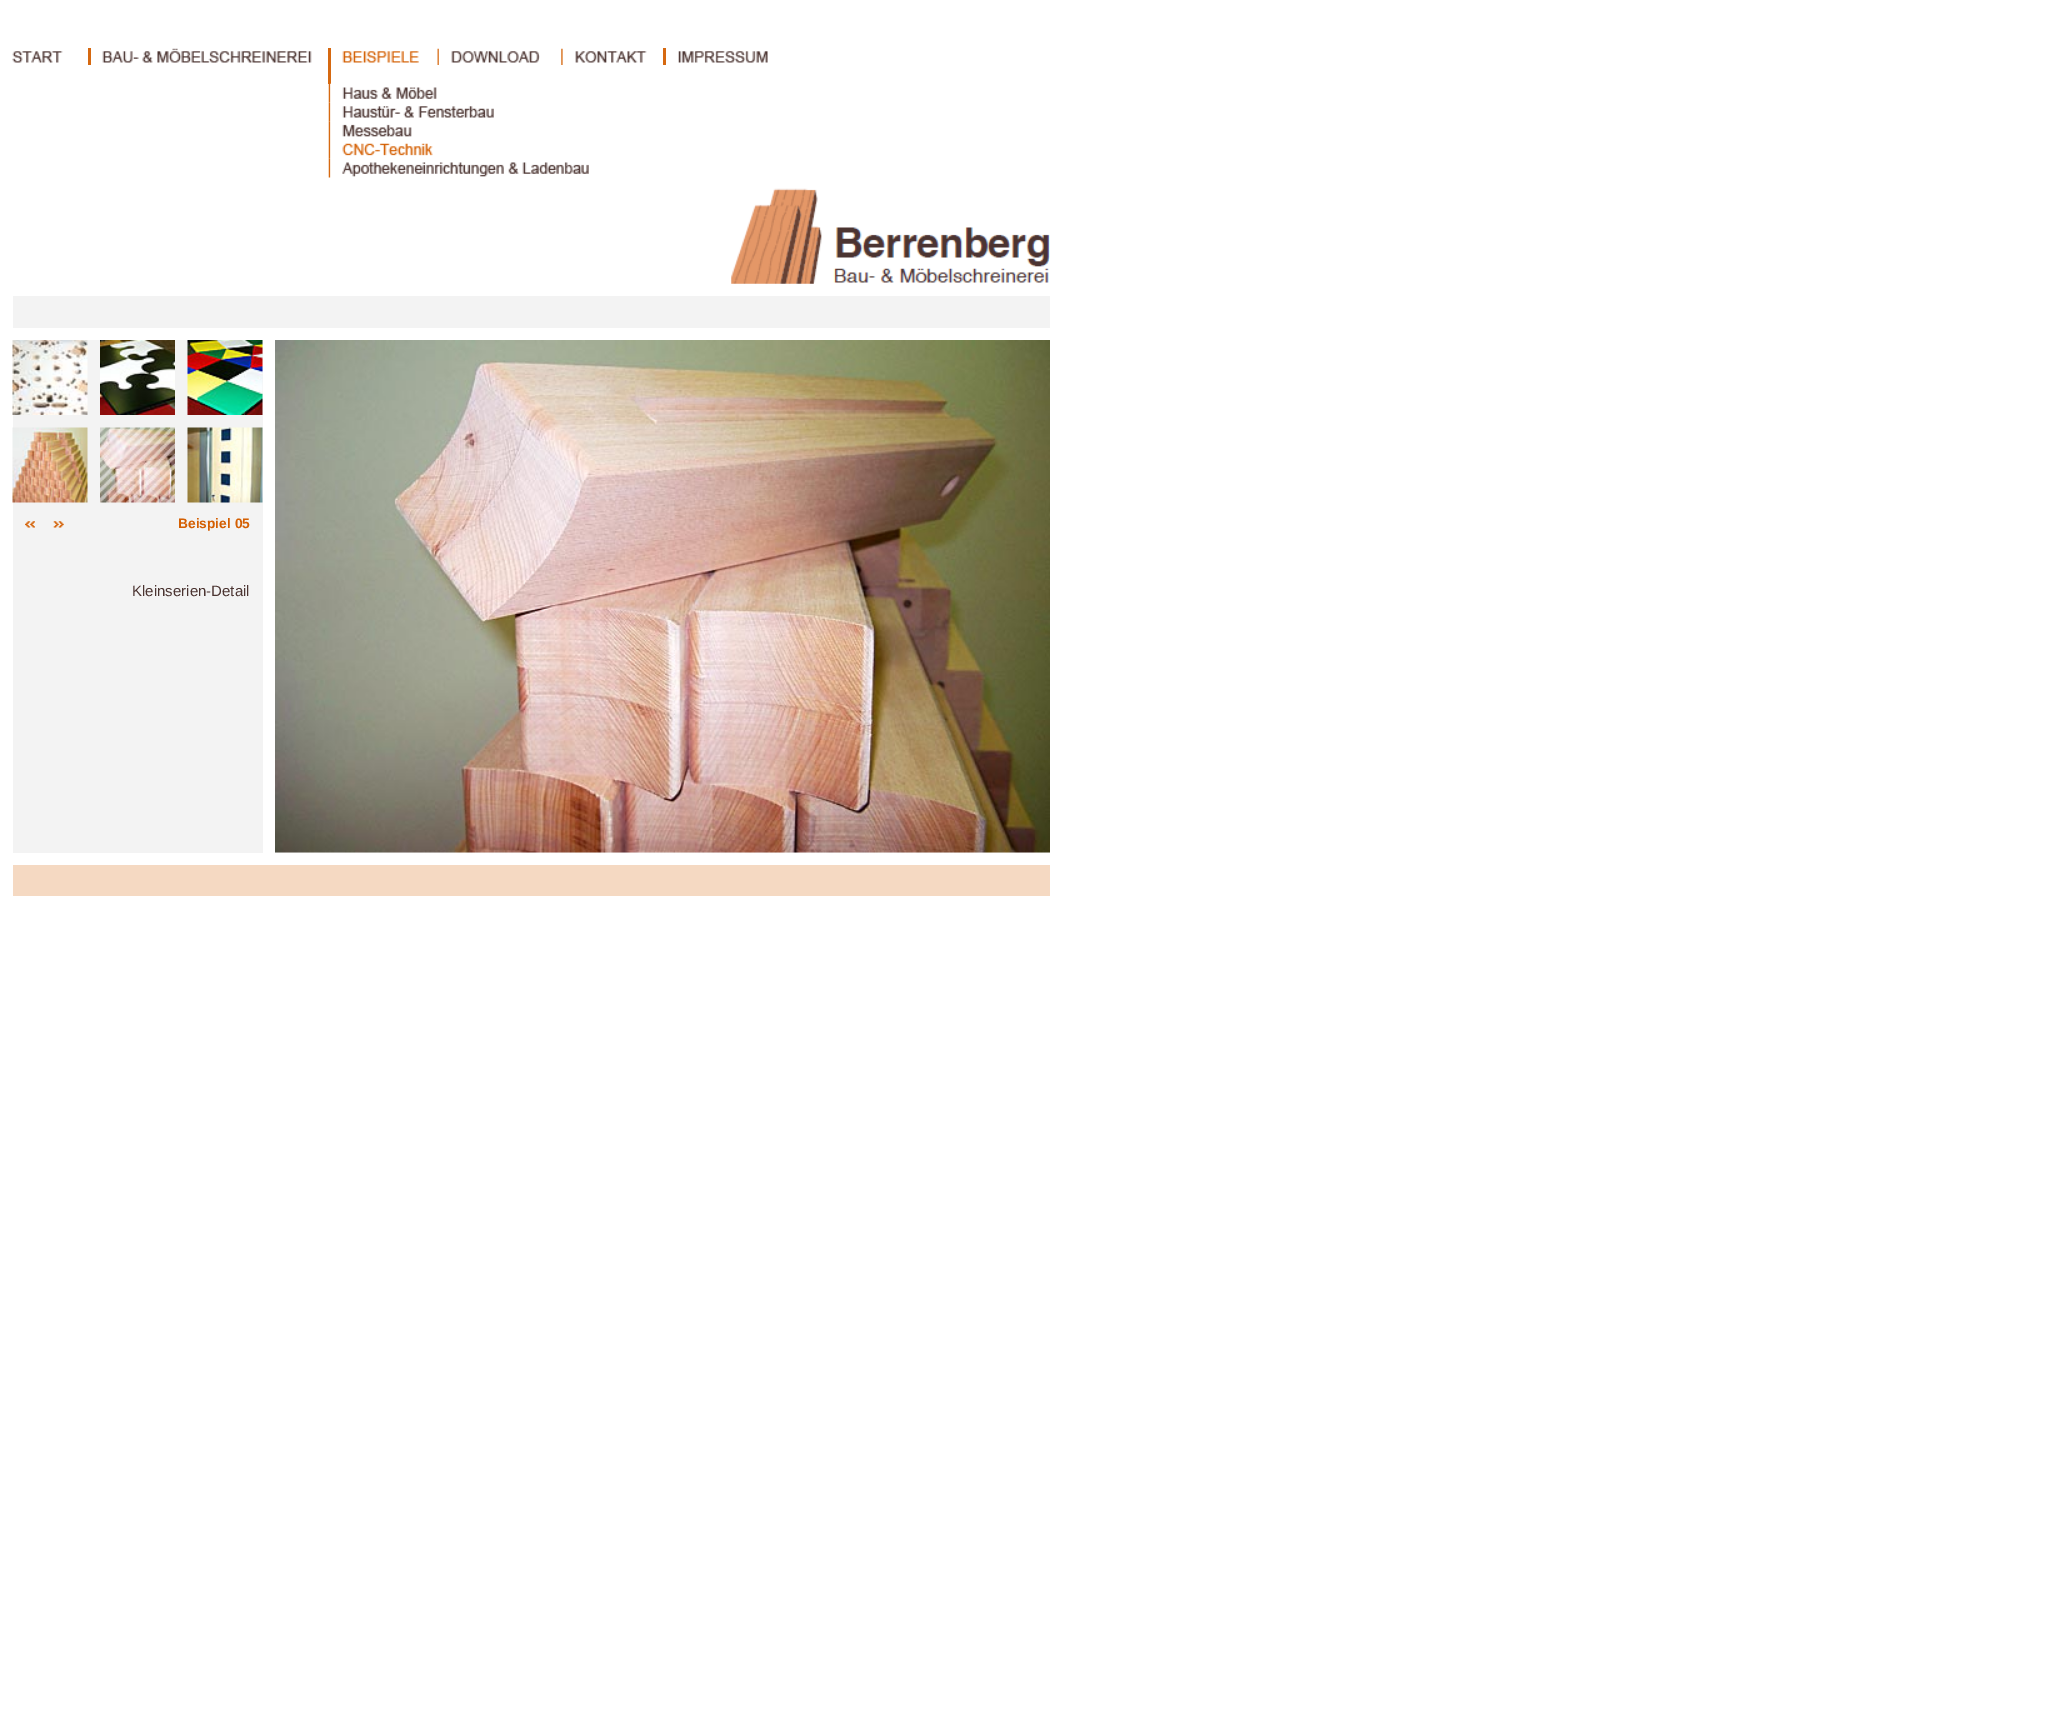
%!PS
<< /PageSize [2056 1729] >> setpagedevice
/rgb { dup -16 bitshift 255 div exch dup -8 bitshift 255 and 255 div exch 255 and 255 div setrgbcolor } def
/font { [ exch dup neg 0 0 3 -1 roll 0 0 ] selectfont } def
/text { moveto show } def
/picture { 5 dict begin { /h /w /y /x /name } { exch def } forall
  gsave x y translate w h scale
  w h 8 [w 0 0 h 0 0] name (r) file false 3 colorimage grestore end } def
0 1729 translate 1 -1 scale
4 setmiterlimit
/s1 { /LiberationSans-Bold 13.75 font 16#D45F02 rgb } def
/s2 { /LiberationSans-Regular 15 font 16#4B3431 rgb } def
16#FFFFFF rgb
0 0 2056 1729 rectfill
(pic1.raw) 12 51 51 12 picture
16#D66911 rgb
88 48 3 17 rectfill
(pic2.raw) 102 48 210 15 picture
328 48 3 36 rectfill
(pic3.raw) 342 51 77 12 picture
(pic4.raw) 437 48 2 17 picture
(pic5.raw) 451 51 89 12 picture
(pic6.raw) 561 48 2 17 picture
(pic7.raw) 575 51 72 12 picture
663 48 3 17 rectfill
(pic8.raw) 678 51 90 12 picture
(pic9.raw) 328 83 109 20 picture
(pic10.raw) 328 102 166 20 picture
(pic11.raw) 328 121 84 19 picture
(pic12.raw) 328 140 105 19 picture
(pic13.raw) 328 158 261 20 picture
(pic14.raw) 731 188 319 96 picture
16#F3F3F3 rgb
13 296 1037 32 rectfill
13 340 250 513 rectfill
(pic15.raw) 12 340 76 75 picture
(pic16.raw) 100 340 75 75 picture
(pic17.raw) 187 340 76 75 picture
(pic18.raw) 12 427 76 76 picture
(pic19.raw) 100 427 75 76 picture
(pic20.raw) 187 427 76 76 picture
(pic21.raw) 25 521 10 7 picture
(pic22.raw) 53 521 11 7 picture
s1
(Beispiel 05) 178 528 text
s2
(Kleinserien-Detail) 132 596 text
16#F3F3F3 rgb
275 852 775 1 rectfill
(pic23.raw) 275 340 775 513 picture
16#F5D9C2 rgb
13 865 1037 31 rectfill
showpage
